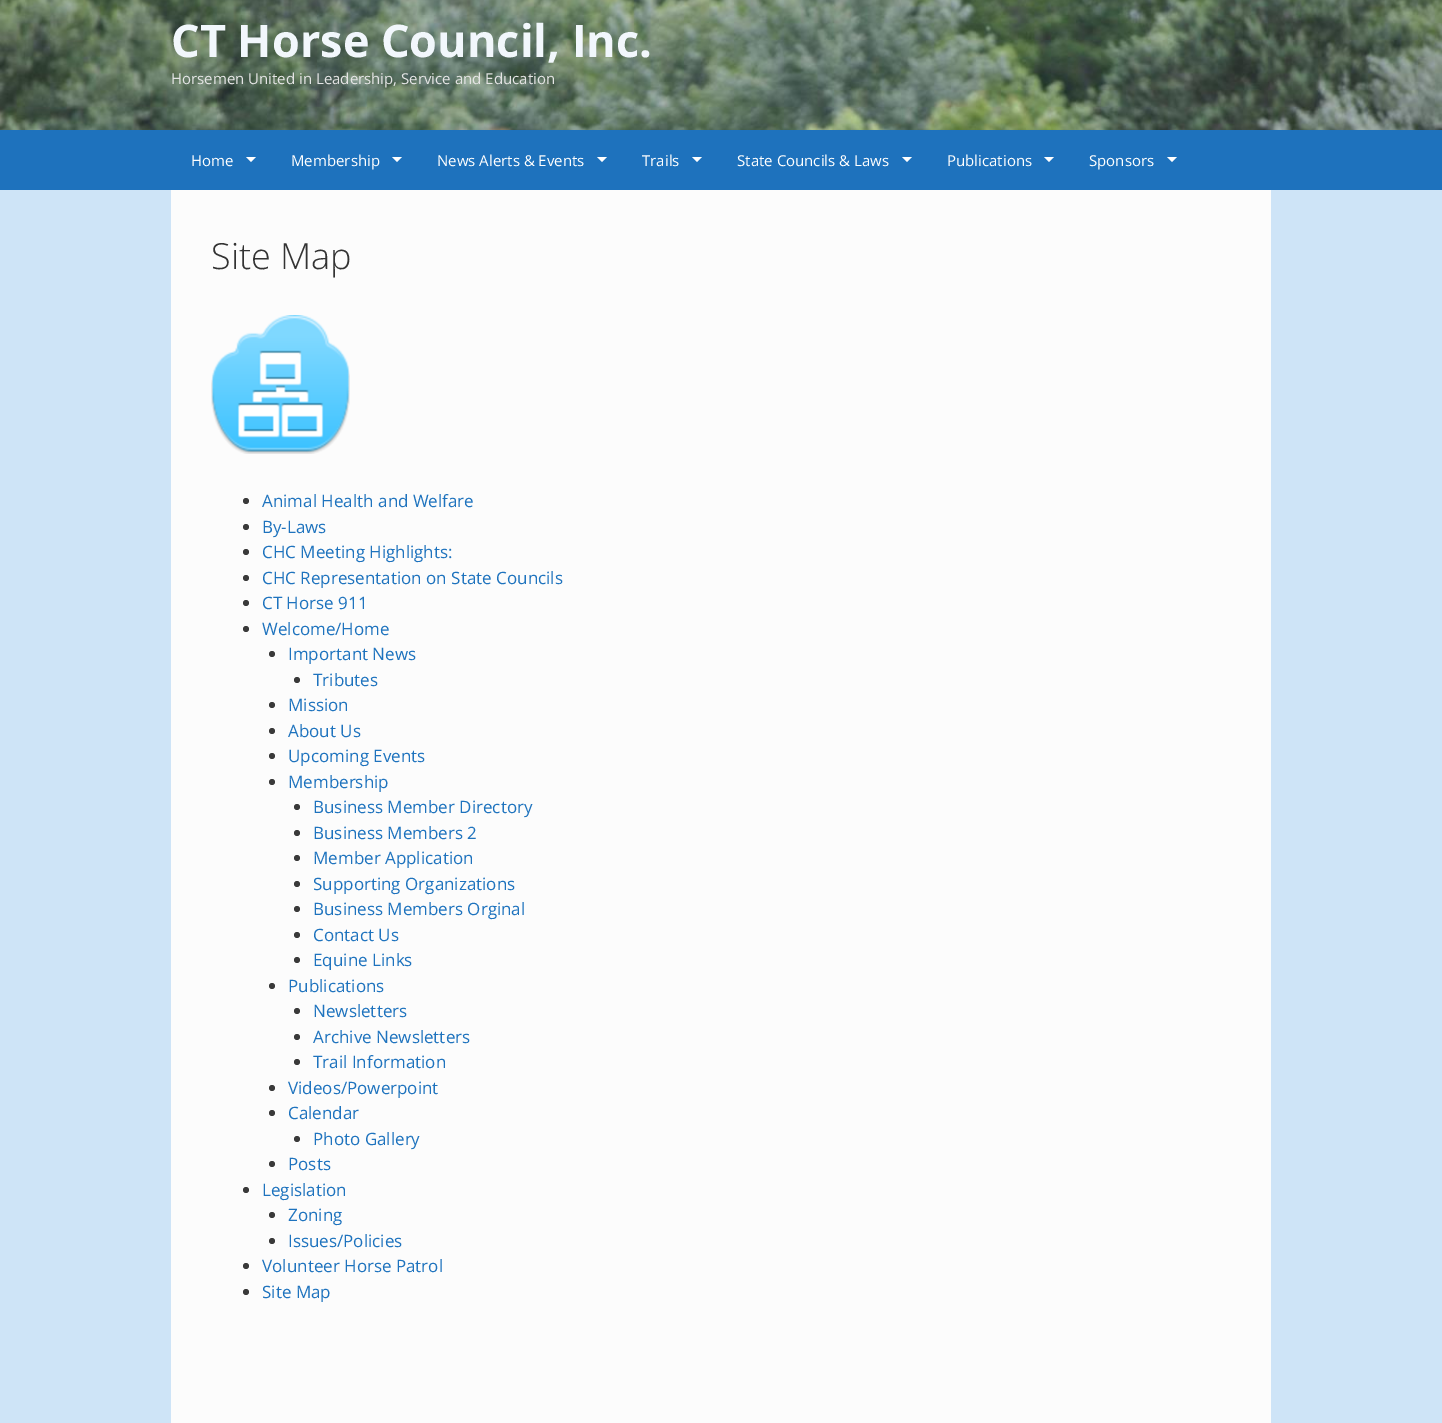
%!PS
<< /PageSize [1442 1423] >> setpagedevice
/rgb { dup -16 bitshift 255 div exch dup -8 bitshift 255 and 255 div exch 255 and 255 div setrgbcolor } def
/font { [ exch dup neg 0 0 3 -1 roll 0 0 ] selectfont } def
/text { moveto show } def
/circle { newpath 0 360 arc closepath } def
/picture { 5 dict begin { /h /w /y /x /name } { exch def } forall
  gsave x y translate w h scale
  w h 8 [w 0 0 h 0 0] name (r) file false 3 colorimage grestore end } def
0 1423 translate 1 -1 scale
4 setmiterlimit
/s1 { /OpenSans-Bold 45 font 16#F2F7FC rgb } def
/s2 { /OpenSans-Regular 15 font 16#E5E5E5 rgb } def
/s3 { /OpenSans-Regular 15 font 16#FFFFFF rgb } def
/s4 { /OpenSans-Light 36 font 16#333333 rgb } def
/s5 { /OpenSans-Regular 17 font 16#1E73BE rgb } def
16#CEE4F7 rgb
0 0 1442 1423 rectfill
(pic1.raw) 0 0 1442 130 picture
s1
(CT Horse Council, Inc.) 171 57 text
s2
(Horsemen United in Leadership, Service and Education) 171 84 text
16#1E72BD rgb
0 130 1442 60 rectfill
s3
(Home) 191 166 text
246 157 moveto 256 157 lineto 251 162 lineto closepath fill
(Membership) 291 166 text
392 157 moveto 402 157 lineto 397 162 lineto closepath fill
(News Alerts & Events) 437 166 text
597 157 moveto 607 157 lineto 602 162 lineto closepath fill
(Trails) 642 166 text
692 157 moveto 702 157 lineto 697 162 lineto closepath fill
(State Councils & Laws) 737 166 text
902 157 moveto 912 157 lineto 907 162 lineto closepath fill
(Publications) 947 166 text
1044 157 moveto 1054 157 lineto 1049 162 lineto closepath fill
(Sponsors) 1089 166 text
1167 157 moveto 1177 157 lineto 1172 162 lineto closepath fill
16#FCFCFC rgb
171 190 1100 1233 rectfill
s4
(Site Map) 211 269 text
(pic2.raw) 211 315 139 139 picture
16#3A3A3A rgb
246 501 3 circle fill
s5
(Animal Health and Welfare) 262 507 text
16#3A3A3A rgb
246 527 3 circle fill
s5
(By-Laws) 262 533 text
16#3A3A3A rgb
246 552 3 circle fill
s5
(CHC Meeting Highlights:) 262 558 text
16#3A3A3A rgb
246 578 3 circle fill
s5
(CHC Representation on State Councils) 262 584 text
16#3A3A3A rgb
246 603 3 circle fill
s5
(CT Horse 911) 262 609 text
16#3A3A3A rgb
246 629 3 circle fill
s5
(Welcome/Home) 262 635 text
16#3A3A3A rgb
272 654 3 circle fill
s5
(Important News) 288 660 text
16#3A3A3A rgb
297 680 3 circle fill
s5
(Tributes) 313 686 text
16#3A3A3A rgb
272 705 3 circle fill
s5
(Mission) 288 711 text
16#3A3A3A rgb
272 731 3 circle fill
s5
(About Us) 288 737 text
16#3A3A3A rgb
272 756 3 circle fill
s5
(Upcoming Events) 288 762 text
16#3A3A3A rgb
272 782 3 circle fill
s5
(Membership) 288 788 text
16#3A3A3A rgb
297 807 3 circle fill
s5
(Business Member Directory) 313 813 text
16#3A3A3A rgb
297 833 3 circle fill
s5
(Business Members 2) 313 839 text
16#3A3A3A rgb
297 858 3 circle fill
s5
(Member Application) 313 864 text
16#3A3A3A rgb
297 884 3 circle fill
s5
(Supporting Organizations) 313 890 text
16#3A3A3A rgb
297 909 3 circle fill
s5
(Business Members Orginal) 313 915 text
16#3A3A3A rgb
297 935 3 circle fill
s5
(Contact Us) 313 941 text
16#3A3A3A rgb
297 960 3 circle fill
s5
(Equine Links) 313 966 text
16#3A3A3A rgb
272 986 3 circle fill
s5
(Publications) 288 992 text
16#3A3A3A rgb
297 1011 3 circle fill
s5
(Newsletters) 313 1017 text
16#3A3A3A rgb
297 1037 3 circle fill
s5
(Archive Newsletters) 313 1043 text
16#3A3A3A rgb
297 1062 3 circle fill
s5
(Trail Information) 313 1068 text
16#3A3A3A rgb
272 1088 3 circle fill
s5
(Videos/Powerpoint) 288 1094 text
16#3A3A3A rgb
272 1113 3 circle fill
s5
(Calendar) 288 1119 text
16#3A3A3A rgb
297 1139 3 circle fill
s5
(Photo Gallery) 313 1145 text
16#3A3A3A rgb
272 1164 3 circle fill
s5
(Posts) 288 1170 text
16#3A3A3A rgb
246 1190 3 circle fill
s5
(Legislation) 262 1196 text
16#3A3A3A rgb
272 1215 3 circle fill
s5
(Zoning) 288 1221 text
16#3A3A3A rgb
272 1241 3 circle fill
s5
(Issues/Policies) 288 1247 text
16#3A3A3A rgb
246 1266 3 circle fill
s5
(Volunteer Horse Patrol) 262 1272 text
16#3A3A3A rgb
246 1292 3 circle fill
s5
(Site Map) 262 1298 text
showpage
